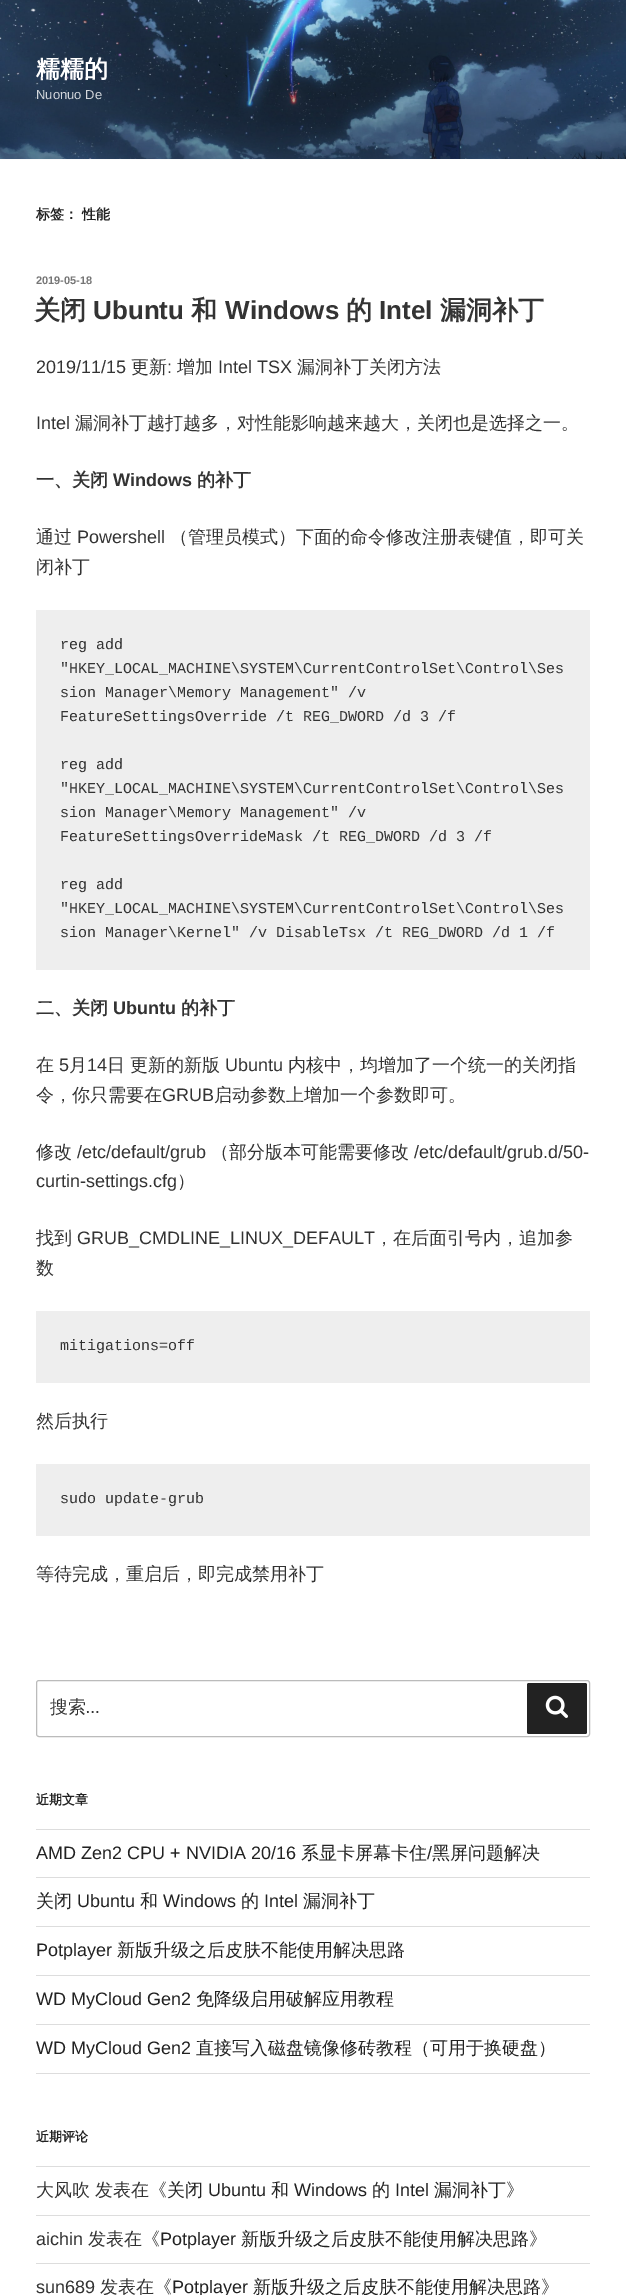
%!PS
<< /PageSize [626 2295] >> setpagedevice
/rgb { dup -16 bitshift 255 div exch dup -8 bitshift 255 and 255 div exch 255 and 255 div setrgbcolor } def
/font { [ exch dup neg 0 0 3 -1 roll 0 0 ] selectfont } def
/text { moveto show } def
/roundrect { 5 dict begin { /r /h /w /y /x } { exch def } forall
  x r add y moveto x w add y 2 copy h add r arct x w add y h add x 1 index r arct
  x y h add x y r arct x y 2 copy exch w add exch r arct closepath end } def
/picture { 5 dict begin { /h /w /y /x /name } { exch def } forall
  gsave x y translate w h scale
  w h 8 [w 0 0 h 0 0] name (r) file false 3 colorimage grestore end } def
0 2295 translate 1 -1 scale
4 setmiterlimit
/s1 { /WenQuanYiZenHei-Bold 24 font 16#FFFFFF rgb } def
/s2 { /LiberationSans-Regular 13 font 16#D3D7DC rgb } def
/s3 { /WenQuanYiZenHei-Bold 14 font 16#222222 rgb } def
/s4 { /LiberationSans-Bold 11 font 16#767676 rgb } def
/s5 { /WenQuanYiZenHei-Bold 26 font 16#333333 rgb } def
/s6 { /LiberationSans-Bold 26 font 16#333333 rgb } def
/s7 { /LiberationSans-Regular 18 font 16#333333 rgb } def
/s8 { /WenQuanYiZenHei-Medium 18 font 16#333333 rgb } def
/s9 { /WenQuanYiZenHei-Bold 18 font 16#333333 rgb } def
/s10 { /LiberationSans-Bold 18 font 16#333333 rgb } def
/s11 { /LiberationMono-Regular 15 font 16#333333 rgb } def
/s12 { /LibreFranklin-Regular 18 font 16#333333 rgb } def
/s13 { /WenQuanYiZenHei-Bold 13 font 16#222222 rgb } def
/s14 { /LiberationSans-Regular 18 font 16#222222 rgb } def
/s15 { /WenQuanYiZenHei-Medium 18 font 16#222222 rgb } def
16#FFFFFF rgb
0 0 626 2295 rectfill
16#FAFAFA rgb
0 159 626 1 rectfill
(pic1.raw) 0 0 626 159 picture
s1
(糯糯的) 36 77 text
s2
(Nuonuo De) 36 99 text
s3
(标签：) 36 219 text
(性能) 82 219 text
s4
(2019-05-18) 36 284 text
s5
(关闭) 34 319 text
s6
(Ubuntu) 93 319 text
s5
(和) 191 319 text
s6
(Windows) 225 319 text
s5
(的) 346 319 text
s6
(Intel) 379 319 text
s5
(漏洞补丁) 440 319 text
s7
(2019/11/15) 36 373 text
s8
(更新) 131 373 text
s7
(:) 167 373 text
s8
(增加) 177 373 text
s7
(Intel TSX) 218 373 text
s8
(漏洞补丁关闭方法) 297 373 text
s7
(Intel) 36 429 text
s8
(漏洞补丁越打越多，对性能影响越来越大，关闭也是选择之一。) 75 429 text
s9
(一、关闭) 36 486 text
s10
(Windows) 113 486 text
s9
(的补丁) 197 486 text
s8
(通过) 36 543 text
s7
(Powershell) 77 543 text
s8
(（管理员模式）下面的命令修改注册表键值，即可关) 170 543 text
(闭补丁) 36 573 text
16#EEEEEE rgb
36 610 554 360 rectfill
s11
(reg add) 60 649 text
("HKEY_LOCAL_MACHINE\\SYSTEM\\CurrentControlSet\\Control\\Ses) 60 673 text
(sion Manager\\Memory Management" /v) 60 697 text
(FeatureSettingsOverride /t REG_DWORD /d 3 /f) 60 721 text
(reg add) 60 769 text
("HKEY_LOCAL_MACHINE\\SYSTEM\\CurrentControlSet\\Control\\Ses) 60 793 text
(sion Manager\\Memory Management" /v) 60 817 text
(FeatureSettingsOverrideMask /t REG_DWORD /d 3 /f) 60 841 text
(reg add) 60 889 text
("HKEY_LOCAL_MACHINE\\SYSTEM\\CurrentControlSet\\Control\\Ses) 60 913 text
(sion Manager\\Kernel" /v DisableTsx /t REG_DWORD /d 1 /f) 60 937 text
s9
(二、关闭) 36 1014 text
s10
(Ubuntu) 113 1014 text
s9
(的补丁) 181 1014 text
s8
(在) 36 1071 text
s7
(5) 59 1071 text
s8
(月) 69 1071 text
s7
(14) 87 1071 text
s8
(日 更新的新版) 107 1071 text
s7
(Ubuntu) 225 1071 text
s8
(内核中，均增加了一个统一的关闭指) 288 1071 text
(令，你只需要在) 36 1101 text
s7
(GRUB) 162 1101 text
s8
(启动参数上增加一个参数即可。) 214 1101 text
(修改) 36 1158 text
s7
(/etc/default/grub) 77 1158 text
s8
(（部分版本可能需要修改) 211 1158 text
s7
(/etc/default/grub.d/50-) 414 1158 text
(curtin-settings.cfg) 36 1187 text
s8
(）) 177 1187 text
(找到) 36 1244 text
s7
(GRUB_CMDLINE_LINUX_DEFAULT) 77 1244 text
s8
(，在后面引号内，追加参) 375 1244 text
(数) 36 1274 text
16#EEEEEE rgb
36 1311 554 72 rectfill
s11
(mitigations=off) 60 1350 text
s8
(然后执行) 36 1427 text
16#EEEEEE rgb
36 1464 554 72 rectfill
s11
(sudo update-grub) 60 1503 text
s8
(等待完成，重启后，即完成禁用补丁) 36 1580 text
16#BBBBBB rgb
36.5 1680.5 553 56 2.5 roundrect stroke
s8
(搜索) 50 1713 text
s12
(…) 86 1713 text
16#222222 rgb
527 1683 60 51 2 roundrect fill
(pic2.raw) 545 1695 23 23 picture
s13
(近期文章) 36 1804 text
16#DDDDDD rgb
36 1829 554 1 rectfill
36 1877 554 1 rectfill
s14
(AMD Zen2 CPU + NVIDIA 20/16) 36 1859 text
s15
(系显卡屏幕卡住) 301 1859 text
s14
(/) 427 1859 text
s15
(黑屏问题解决) 432 1859 text
16#DDDDDD rgb
36 1926 554 1 rectfill
s15
(关闭) 36 1907 text
s14
(Ubuntu) 77 1907 text
s15
(和) 140 1907 text
s14
(Windows) 163 1907 text
s15
(的) 241 1907 text
s14
(Intel) 264 1907 text
s15
(漏洞补丁) 303 1907 text
16#DDDDDD rgb
36 1975 554 1 rectfill
s14
(Potplayer) 36 1956 text
s15
(新版升级之后皮肤不能使用解决思路) 117 1956 text
16#DDDDDD rgb
36 2024 554 1 rectfill
s14
(WD MyCloud Gen2) 36 2005 text
s15
(免降级启用破解应用教程) 196 2005 text
16#DDDDDD rgb
36 2073 554 1 rectfill
s14
(WD MyCloud Gen2) 36 2054 text
s15
(直接写入磁盘镜像修砖教程（可用于换硬盘）) 196 2054 text
s13
(近期评论) 36 2141 text
16#DDDDDD rgb
36 2166 554 1 rectfill
36 2215 554 1 rectfill
s8
(大风吹) 36 2196 text
(发表在《) 95 2196 text
s15
(关闭) 167 2196 text
s14
(Ubuntu) 208 2196 text
s15
(和) 271 2196 text
s14
(Windows) 294 2196 text
s15
(的) 372 2196 text
s14
(Intel) 395 2196 text
s15
(漏洞补丁) 434 2196 text
s8
(》) 506 2196 text
16#DDDDDD rgb
36 2263 554 1 rectfill
s7
(aichin) 36 2245 text
s8
(发表在《) 88 2245 text
s14
(Potplayer) 160 2245 text
s15
(新版升级之后皮肤不能使用解决思路) 241 2245 text
s8
(》) 529 2245 text
s7
(sun689) 36 2293 text
s8
(发表在《) 100 2293 text
s14
(Potplayer) 172 2293 text
s15
(新版升级之后皮肤不能使用解决思路) 253 2293 text
s8
(》) 541 2293 text
showpage
